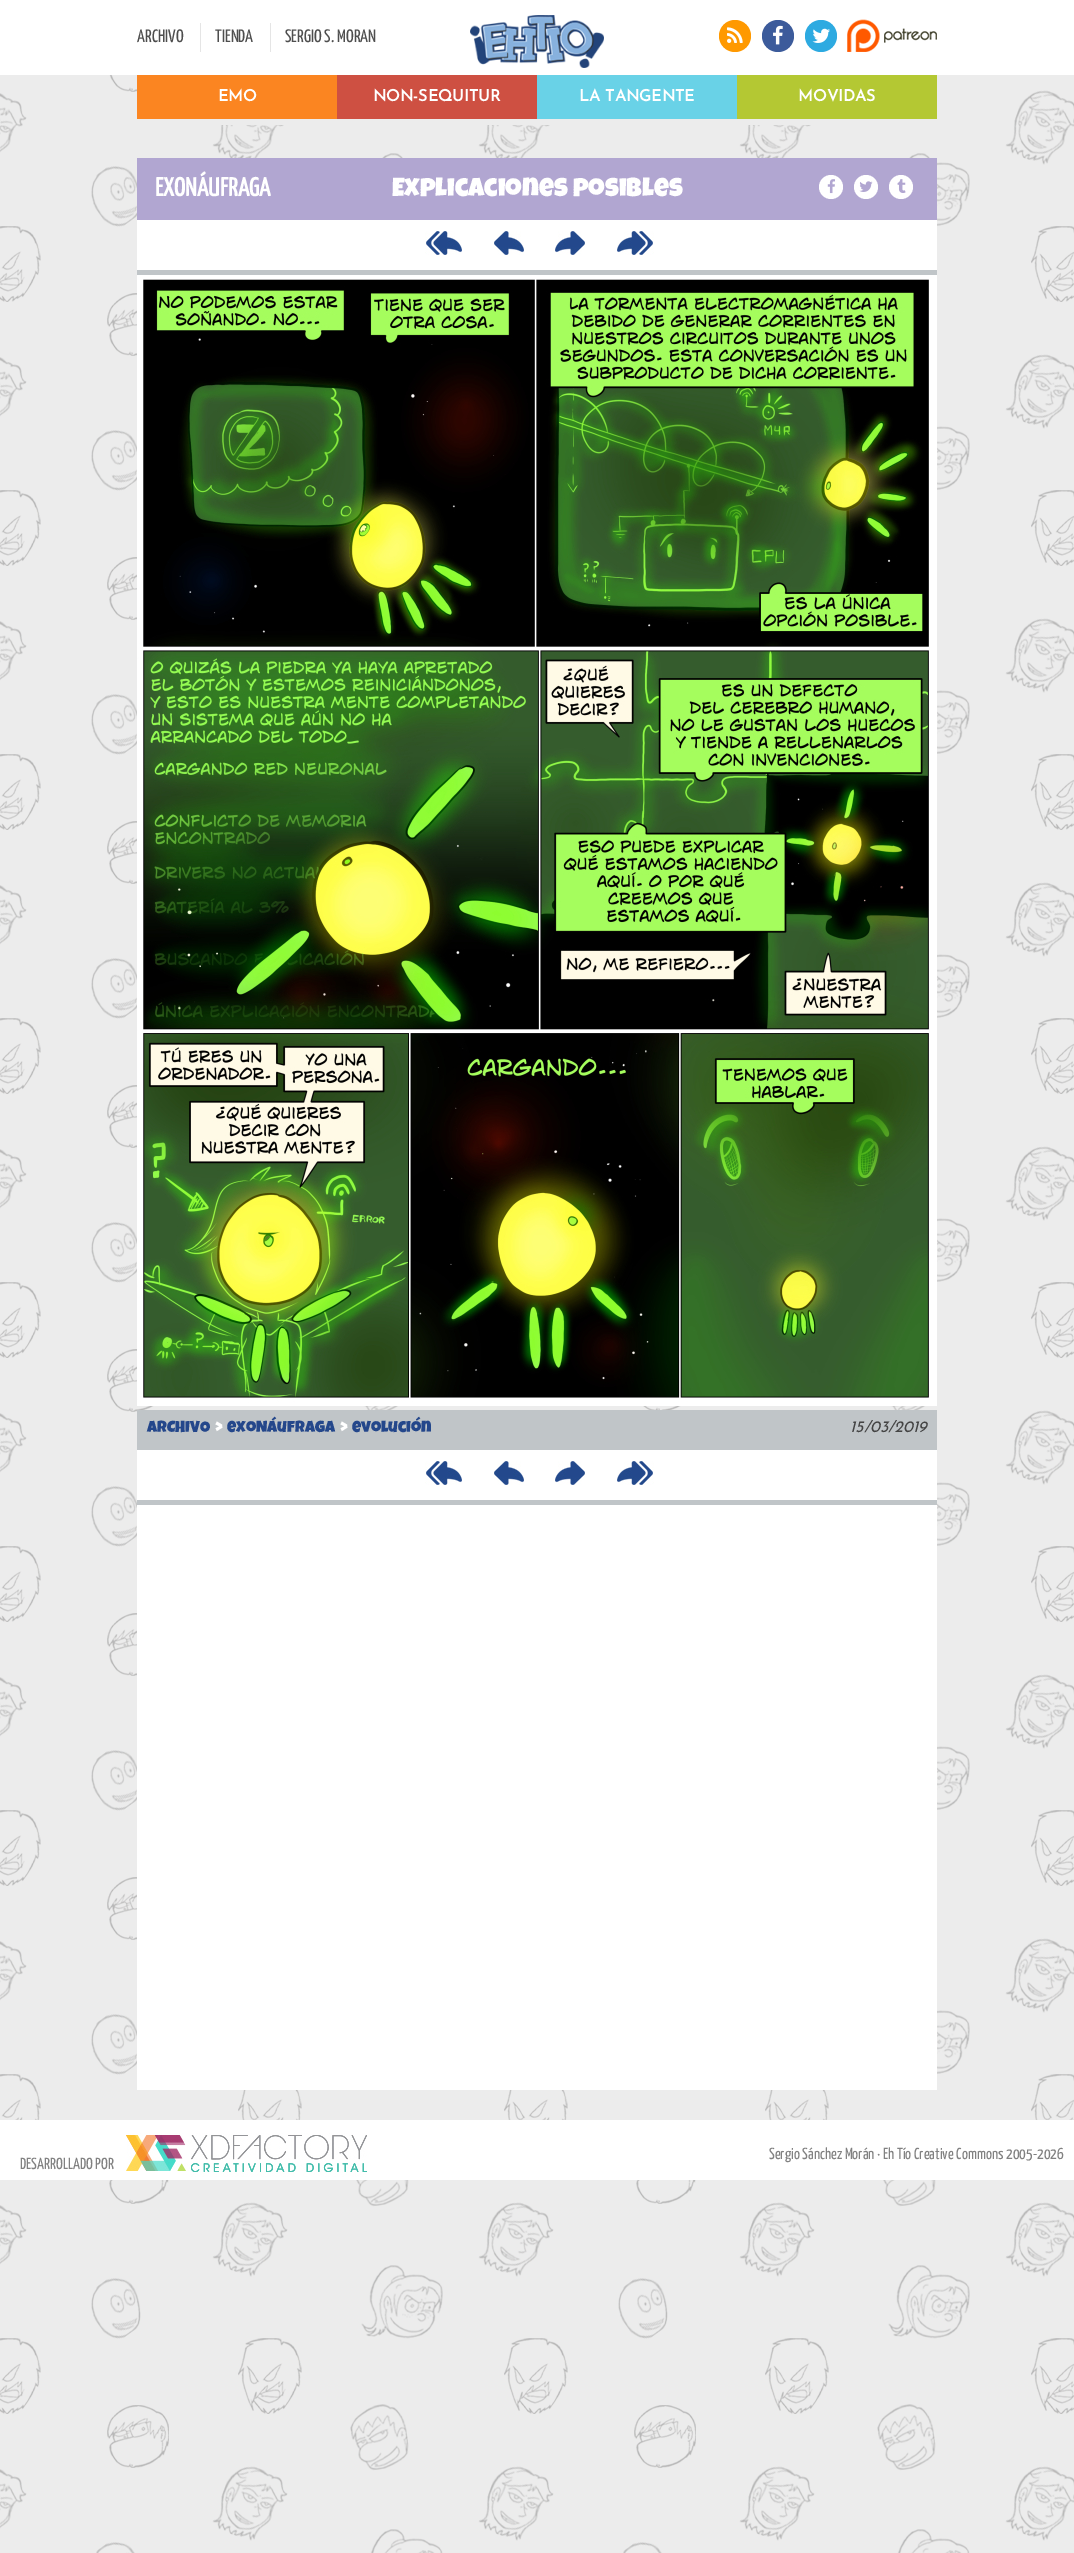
%!PS
<< /PageSize [1074 2553] >> setpagedevice
/rgb { dup -16 bitshift 255 div exch dup -8 bitshift 255 and 255 div exch 255 and 255 div setrgbcolor } def
/font { [ exch dup neg 0 0 3 -1 roll 0 0 ] selectfont } def
/text { moveto show } def
/circle { newpath 0 360 arc closepath } def
/picture { 5 dict begin { /h /w /y /x /name } { exch def } forall
  gsave x y translate w h scale
  w h 8 [w 0 0 h 0 0] name (r) file false 3 colorimage grestore end } def
0 2553 translate 1 -1 scale
4 setmiterlimit
/s1 { /YanoneKaffeesatz-ExtraLight 18 font 16#4E4E4E rgb } def
/s2 { /JosefinSans-Bold 16 font 16#FFFFFF rgb } def
/s3 { /YanoneKaffeesatz-Bold 26 font 16#FFFFFF rgb } def
/s4 { /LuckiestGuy-Regular 26 font 16#FFFFFF rgb } def
/s5 { /LuckiestGuy-Regular 16 font 16#24478B rgb } def
/s6 { /LuckiestGuy-Bold 16 font 16#FFFFFF rgb } def
/s7 { /JosefinSans-ThinItalic 16 font 16#444444 rgb } def
/s8 { /YanoneKaffeesatz-ExtraLight 16 font 16#818181 rgb } def
16#ECECEC rgb
0 0 1074 2553 rectfill
(pic1.raw) 0 75 1074 2478 picture
16#FFFFFF rgb
0 0 1074 75 rectfill
s1
(ARCHIVO) 137 42 text
16#E5E5E5 rgb
200 23 1 29 rectfill
s1
(TIENDA) 215 42 text
16#E5E5E5 rgb
270 23 1 29 rectfill
s1
(SERGIO S. MORAN) 285 42 text
(pic2.raw) 470 15 134 53 picture
16#FF9900 rgb
735 36 16 circle fill
(pic3.raw) 727 27 16 16 picture
16#3C5B9B rgb
778 36 16 circle fill
(pic4.raw) 773 25 10 20 picture
16#2DAAE1 rgb
821 36 16 circle fill
(pic5.raw) 812 28 18 15 picture
(pic6.raw) 847 19 90 33 picture
16#ECECEC rgb
221 119 593 6 rectfill
16#FB8521 rgb
137 75 200 44 rectfill
s2
(EMO) 218 101 text
16#CE5042 rgb
337 75 200 44 rectfill
s2
(NON-SEQUITUR) 373 101 text
16#69D2E7 rgb
537 75 200 44 rectfill
s2
(LA TANGENTE) 579 101 text
16#B4C833 rgb
737 75 200 44 rectfill
s2
(MOVIDAS) 798 101 text
16#B1A6D1 rgb
137 158 800 62 rectfill
s3
(EXONÁUFRAGA) 155 196 text
s4
(Explicaciones posibles) 392 196 text
831 187 12 circle fill
(pic7.raw) 827 179 8 15 picture
866 187 12 circle fill
(pic8.raw) 859 181 14 11 picture
901 187 12 circle fill
(pic9.raw) 897 179 9 14 picture
137 220 800 50 rectfill
16#C0C5C8 rgb
137 270 800 5 rectfill
(pic10.raw) 425 231 37 24 picture
(pic11.raw) 494 231 30 24 picture
(pic12.raw) 555 231 30 24 picture
(pic13.raw) 617 231 37 24 picture
(pic14.raw) 137 275 800 1131 picture
137 1410 800 40 rectfill
s5
(ARCHIVO) 147 1432 text
s6
(>) 215 1432 text
s5
(exoNáufraga) 227 1432 text
s6
(>) 340 1432 text
s5
(evolución) 352 1432 text
s7
(15/03/2019) 850 1432 text
16#FFFFFF rgb
137 1450 800 50 rectfill
16#C0C5C8 rgb
137 1500 800 5 rectfill
(pic10.raw) 425 1461 37 24 picture
(pic11.raw) 494 1461 30 24 picture
(pic12.raw) 555 1461 30 24 picture
(pic13.raw) 617 1461 37 24 picture
16#FFFFFF rgb
137 1505 800 585 rectfill
0 2120 1074 60 rectfill
s8
(DESARROLLADO POR) 20 2169 text
(pic15.raw) 126 2133 241 44 picture
(Sergio Sánchez Morán · Eh Tío Creative Commons 2005-2026) 769 2159 text
showpage
